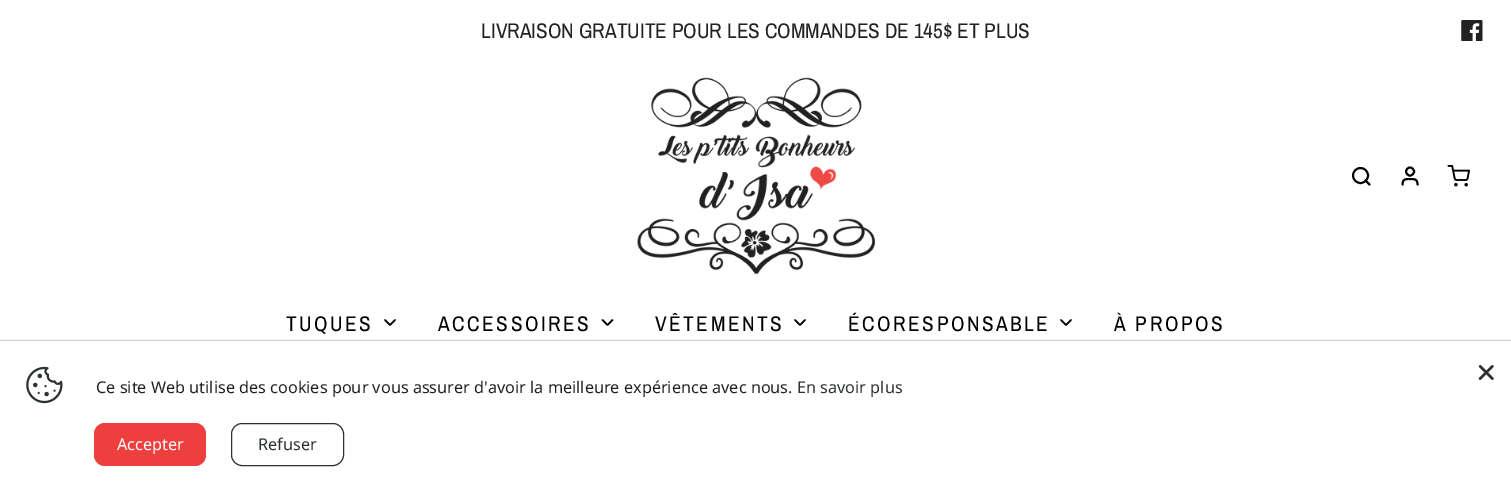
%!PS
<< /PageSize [1511 491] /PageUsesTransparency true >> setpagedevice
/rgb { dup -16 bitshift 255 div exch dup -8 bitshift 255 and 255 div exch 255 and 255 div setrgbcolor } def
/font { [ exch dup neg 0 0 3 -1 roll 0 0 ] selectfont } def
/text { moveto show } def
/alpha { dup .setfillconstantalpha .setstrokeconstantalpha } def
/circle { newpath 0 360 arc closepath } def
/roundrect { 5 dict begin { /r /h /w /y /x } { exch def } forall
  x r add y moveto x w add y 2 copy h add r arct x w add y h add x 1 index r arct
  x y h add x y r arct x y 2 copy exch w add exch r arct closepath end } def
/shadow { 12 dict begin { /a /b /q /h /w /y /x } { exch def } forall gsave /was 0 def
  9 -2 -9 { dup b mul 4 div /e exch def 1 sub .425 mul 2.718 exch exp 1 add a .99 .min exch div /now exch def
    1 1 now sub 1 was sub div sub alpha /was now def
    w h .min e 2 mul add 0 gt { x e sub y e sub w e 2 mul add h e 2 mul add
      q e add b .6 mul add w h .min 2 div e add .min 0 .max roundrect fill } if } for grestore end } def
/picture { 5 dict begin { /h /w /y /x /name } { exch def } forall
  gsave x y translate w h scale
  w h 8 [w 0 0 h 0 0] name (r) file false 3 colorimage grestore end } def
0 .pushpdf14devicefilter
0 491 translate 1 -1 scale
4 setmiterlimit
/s1 { /ArchivoNarrow-Regular 21.25 font 16#222222 rgb } def
/s2 { /NotoSans-Regular 16.25 font 16#222222 rgb } def
/s3 { /NotoSans-Regular 16.25 font 16#2C332F rgb } def
/s4 { /NotoSans-Regular 16.25 font 16#FFFFFF rgb } def
16#FFFFFF rgb
0 0 1511 491 rectfill
s1
(LIVRAISON GRATUITE POUR LES COMMANDES DE 145$ ET PLUS) 481 38 text
(pic1.raw) 1461 20 22 21 picture
(pic2.raw) 637 77 238 198 picture
16#000000 rgb
1.9 setlinewidth
1410 171.5 4 circle stroke
(pic3.raw) 1447 165 23 22 picture
1360.5 175.5 7.5 circle stroke
1 setlinecap
1 setlinejoin
1369.5 184.5 moveto 1365.5 180.5 lineto 1417.5 184.5 moveto 1417.5 179 1415 179 1410 179 curveto 1405 179 1402.5 179 1402.5 184.5 curveto stroke
286 331 moveto 2.5 0 (TUQUES) ashow
1.7 setlinewidth
385 320 moveto 390 325 lineto 395 320 lineto stroke
438 331 moveto 2.5 0 (ACCESSOIRES) ashow
602.5 320 moveto 607.5 325 lineto 612.5 320 lineto stroke
655 331 moveto 2.5 0 (VÊTEMENTS) ashow
795 320 moveto 800 325 lineto 805 320 lineto stroke
848 331 moveto 2.5 0 (ÉCORESPONSABLE) ashow
1061 320 moveto 1066 325 lineto 1071 320 lineto stroke
1114 331 moveto 2.5 0 (À PROPOS) ashow
0 341 1511 150 0 1 0.5 shadow
16#FFFFFF rgb
0 341 1511 150 rectfill
(pic4.raw) 1478 365 16 15 picture
(pic5.raw) 26 366 37 38 picture
s2
(Ce site Web utilise des cookies pour vous assurer d'avoir la meilleure expérience avec nous.) 96 393 text
s3
(En savoir plus) 797 393 text
16#EC3F3E rgb
94 423 112 43 11 roundrect fill
s4
(Accepter) 117 450 text
16#2C332F rgb
1 setlinewidth
0 setlinecap
0 setlinejoin
231.5 423.5 112 42 10.5 roundrect stroke
(Refuser) 258 450 text
.poppdf14devicefilter showpage
